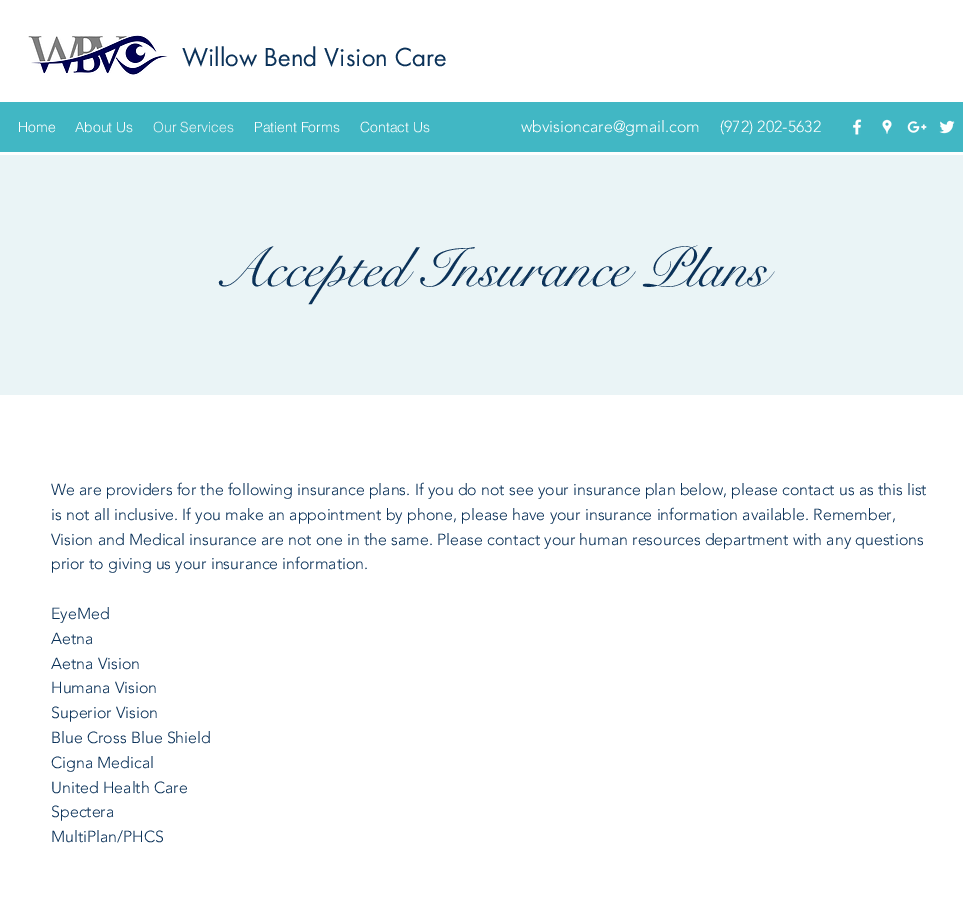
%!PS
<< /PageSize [963 921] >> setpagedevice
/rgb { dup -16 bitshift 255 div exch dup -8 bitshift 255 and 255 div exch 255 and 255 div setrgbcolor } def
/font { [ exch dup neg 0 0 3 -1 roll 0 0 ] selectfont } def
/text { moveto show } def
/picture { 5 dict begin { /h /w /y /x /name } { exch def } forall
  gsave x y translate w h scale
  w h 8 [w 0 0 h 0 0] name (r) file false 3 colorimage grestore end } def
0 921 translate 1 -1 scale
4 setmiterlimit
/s1 { /futura-Regular 24 font 16#0B3259 rgb } def
/s2 { /helvetica-Light 14 font 16#FFFFFF rgb } def
/s3 { /helvetica-Light 14 font 16#EAF4F6 rgb } def
/s4 { /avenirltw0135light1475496-Light 16 font 16#FFFFFF rgb } def
/s5 { /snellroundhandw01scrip-Regular 56 font 16#0B3259 rgb } def
/s6 { /avenirltw0135light1475496-Light 16 font 16#0B3259 rgb } def
16#FFFFFF rgb
0 0 963 921 rectfill
(pic1.raw) 28 35 140 41 picture
s1
(Willow Bend Vision Care) 182 66 text
16#41B7C4 rgb
0 102 963 50 rectfill
s2
(Home) 18 132 text
(About Us) 75 132 text
s3
(Our Services) 153 132 text
s2
(Patient Forms) 254 132 text
(Contact Us) 360 132 text
s4
(wbvisioncare@gmail.com) 521 132 text
(\(972\) 202-5632) 720 132 text
(pic2.raw) 853 119 9 16 picture
(pic3.raw) 882 119 10 15 picture
(pic4.raw) 907 121 20 12 picture
(pic5.raw) 939 120 16 14 picture
16#EAF4F6 rgb
0 155 963 240 rectfill
s5
(Accepted Insurance Plans) 214 286 text
s6
(We are providers for the following insurance plans. If you do not see your insurance plan below, please contact us as this list) 51 495 text
(is not all inclusive. If you make an appointment by phone, please have your insurance information available. Remember,) 51 520 text
(Vision and Medical insurance are not one in the same. Please contact your human resources department with any questions) 51 545 text
(prior to giving us your insurance information.) 51 569 text
(EyeMed) 51 619 text
(Aetna) 51 644 text
(Aetna Vision) 51 669 text
(Humana Vision) 51 693 text
(Superior Vision) 51 718 text
(Blue Cross Blue Shield) 51 743 text
(Cigna Medical) 51 768 text
(United Health Care) 51 793 text
(Spectera) 51 817 text
(MultiPlan/PHCS) 51 842 text
showpage
